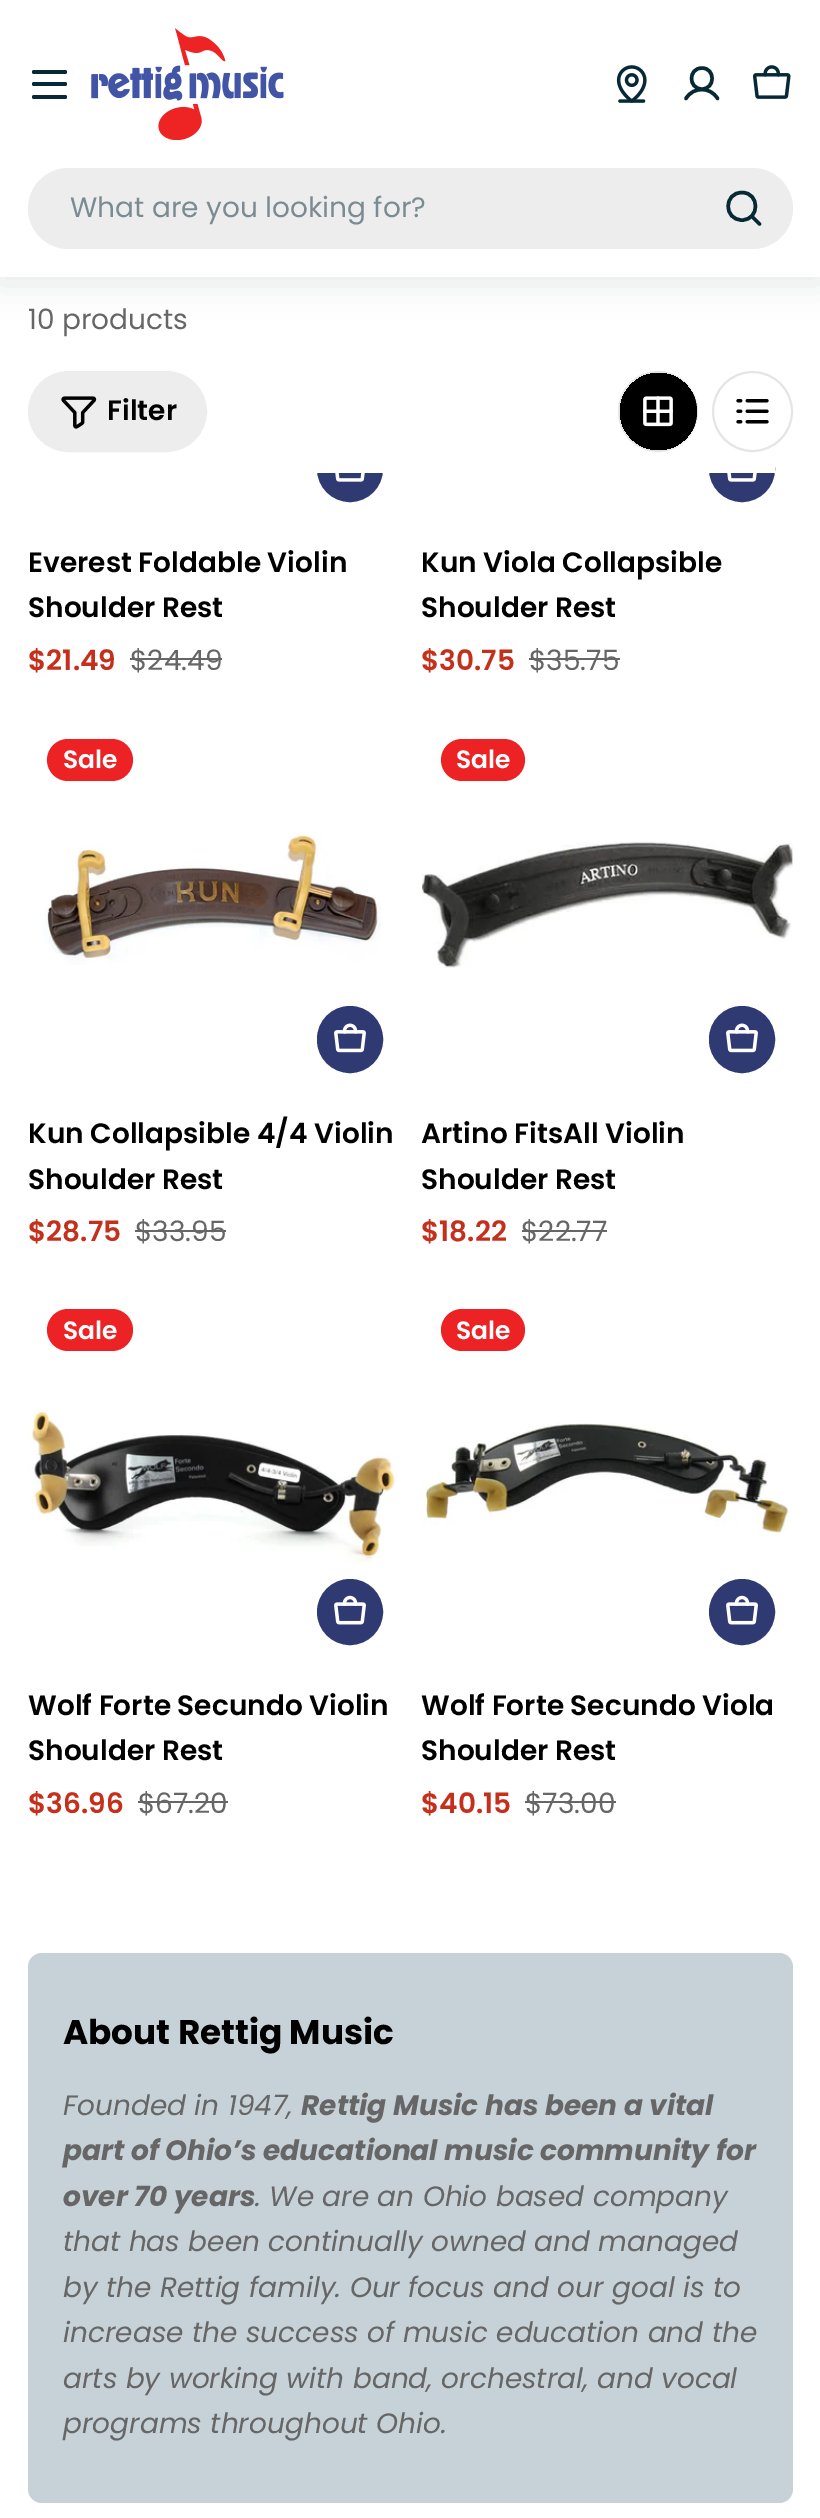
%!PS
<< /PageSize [820 2518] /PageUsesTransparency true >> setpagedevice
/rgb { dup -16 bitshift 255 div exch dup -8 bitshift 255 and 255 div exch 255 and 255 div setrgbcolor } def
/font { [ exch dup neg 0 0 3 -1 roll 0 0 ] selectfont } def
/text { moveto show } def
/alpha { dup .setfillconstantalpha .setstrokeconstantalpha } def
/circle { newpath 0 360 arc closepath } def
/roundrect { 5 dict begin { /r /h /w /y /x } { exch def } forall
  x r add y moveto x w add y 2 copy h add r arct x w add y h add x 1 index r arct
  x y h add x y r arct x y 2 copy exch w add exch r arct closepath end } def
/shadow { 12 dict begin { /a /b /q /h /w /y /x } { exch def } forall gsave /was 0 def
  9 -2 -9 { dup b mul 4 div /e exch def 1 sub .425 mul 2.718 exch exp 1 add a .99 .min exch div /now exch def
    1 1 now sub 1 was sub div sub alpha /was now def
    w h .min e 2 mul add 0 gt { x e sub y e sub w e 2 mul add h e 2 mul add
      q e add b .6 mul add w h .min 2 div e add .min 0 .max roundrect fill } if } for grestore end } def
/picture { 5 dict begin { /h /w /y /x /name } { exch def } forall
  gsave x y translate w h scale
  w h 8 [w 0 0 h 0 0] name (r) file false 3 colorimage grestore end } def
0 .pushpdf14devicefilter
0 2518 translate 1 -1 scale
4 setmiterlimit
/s1 { /Poppins-Regular 28 font 16#7A8B91 rgb } def
/s2 { /Poppins-Regular 28 font 16#666666 rgb } def
/s3 { /Poppins-SemiBold 28 font 16#000000 rgb } def
/s4 { /Poppins-SemiBold 28 font 16#C4301C rgb } def
/s5 { /Poppins-SemiBold 25 font 16#FFFFFF rgb } def
/s6 { /Poppins-Bold 34.25 font 16#000000 rgb } def
/s7 { /Poppins-Italic 28 font 16#666666 rgb } def
/s8 { /Poppins-BoldItalic 28 font 16#666666 rgb } def
16#FFFFFF rgb
0 0 820 2518 rectfill
16#072835 rgb
0 7 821 277 0 16 0.1 shadow
16#FFFFFF rgb
0 0 820 277 rectfill
16#072835 rgb
32 82 35 4 2 roundrect fill
32 70 35 4 2 roundrect fill
32 95 35 4 2 roundrect fill
(pic1.raw) 91 28 193 112 picture
(pic2.raw) 616 65 31 38 picture
3.5 setlinewidth
1 setlinecap
1 setlinejoin
702 89 moveto 715.5 89 715.5 68 702 68 curveto 688 68 688 89 702 89 curveto closepath 686 98.5 moveto 693 86.5 710.5 86.5 717.5 98.5 curveto stroke
(pic3.raw) 753 65 38 34 picture
16#EDEDED rgb
28 168 765 81 40.5 roundrect fill
s1
(What are you looking for?) 70 217 text
16#072835 rgb
742 220 moveto 760 220 760 192.5 742 192.5 curveto 723.5 192.5 723.5 220 742 220 curveto closepath 751.5 216 moveto 759.5 224 lineto stroke
16#2F3A72 rgb
350 469 32 circle gsave fill grestore
2 setlinewidth
0 setlinecap
0 setlinejoin
stroke
742 469 32 circle gsave fill grestore
stroke
16#FFFFFF rgb
317 436 458 37 rectfill
s2
(10 products) 28 329 text
16#EDEDED rgb
29 372 177 79 39.5 roundrect gsave fill grestore
stroke
(pic4.raw) 61 396 36 33 picture
s3
(Filter) 107 420 text
619 372 78 79 39 roundrect gsave fill grestore
16#E5E5E5 rgb
stroke
gsave
620 373 77 77 38.5 roundrect clip newpath
16#000000 rgb
618 371 79 81 39.5 roundrect fill
grestore
(pic5.raw) 643 396 30 31 picture
752.5 411.5 39.5 circle stroke
(pic6.raw) 736 399 33 25 picture
(pic7.raw) 335 473 30 9 picture
s3
(Everest Foldable Violin) 28 572 text
(Shoulder Rest) 28 617 text
s4
($21.49) 28 670 text
s2
($24.49) 130 670 text
130 658 92 2 rectfill
(pic7.raw) 727 473 30 9 picture
s3
(Kun Viola Collapsible) 421 572 text
(Shoulder Rest) 421 617 text
s4
($30.75) 421 670 text
s2
($35.75) 529 670 text
529 658 91 2 rectfill
16#ED2224 rgb
47 739 86 42 21 roundrect fill
s5
(Sale) 63 768 text
(pic8.raw) 42 834 339 131 picture
16#2F3A72 rgb
318 1007 64 65 32 roundrect gsave fill grestore
stroke
(pic9.raw) 334 1023 32 30 picture
s3
(Kun Collapsible 4/4 Violin) 28 1143 text
(Shoulder Rest) 28 1189 text
s4
($28.75) 28 1241 text
s2
($33.95) 135 1241 text
135 1230 91 2 rectfill
16#ED2224 rgb
441 739 84 42 21 roundrect fill
s5
(Sale) 456 768 text
(pic10.raw) 422 841 371 127 picture
16#2F3A72 rgb
710 1007 64 65 32 roundrect gsave fill grestore
stroke
(pic9.raw) 726 1023 32 30 picture
s3
(Artino FitsAll Violin) 421 1143 text
(Shoulder Rest) 421 1189 text
s4
($18.22) 421 1241 text
s2
($22.77) 521 1241 text
522 1230 85 2 rectfill
16#ED2224 rgb
47 1309 86 42 21 roundrect fill
s5
(Sale) 63 1339 text
(pic11.raw) 28 1408 370 155 picture
16#2F3A72 rgb
350 1612 32 circle gsave fill grestore
stroke
(pic12.raw) 334 1595 32 30 picture
s3
(Wolf Forte Secundo Violin) 28 1715 text
(Shoulder Rest) 28 1760 text
s4
($36.96) 28 1813 text
s2
($67.20) 138 1813 text
138 1801 90 2 rectfill
16#ED2224 rgb
441 1309 84 42 21 roundrect fill
s5
(Sale) 456 1339 text
(pic13.raw) 422 1423 368 110 picture
16#2F3A72 rgb
742 1612 32 circle gsave fill grestore
stroke
(pic12.raw) 726 1595 32 30 picture
s3
(Wolf Forte Secundo Viola) 421 1715 text
(Shoulder Rest) 421 1760 text
s4
($40.15) 421 1813 text
s2
($73.00) 525 1813 text
525 1801 91 2 rectfill
16#C7D2D8 rgb
28 1953 765 550 14 roundrect fill
s6
(About Rettig Music) 63 2044 text
s7
(Founded in 1947,) 63 2115 text
s8
(Rettig Music has been a vital) 301 2115 text
(part of Ohio’s educational music community for) 63 2160 text
(over 70 years) 63 2206 text
s7
(. We are an Ohio based company) 255 2206 text
(that has been continually owned and managed) 63 2251 text
(by the Rettig family. Our focus and our goal is to) 63 2297 text
(increase the success of music education and the) 63 2342 text
(arts by working with band, orchestral, and vocal) 63 2388 text
(programs throughout Ohio.) 63 2433 text
.poppdf14devicefilter showpage
